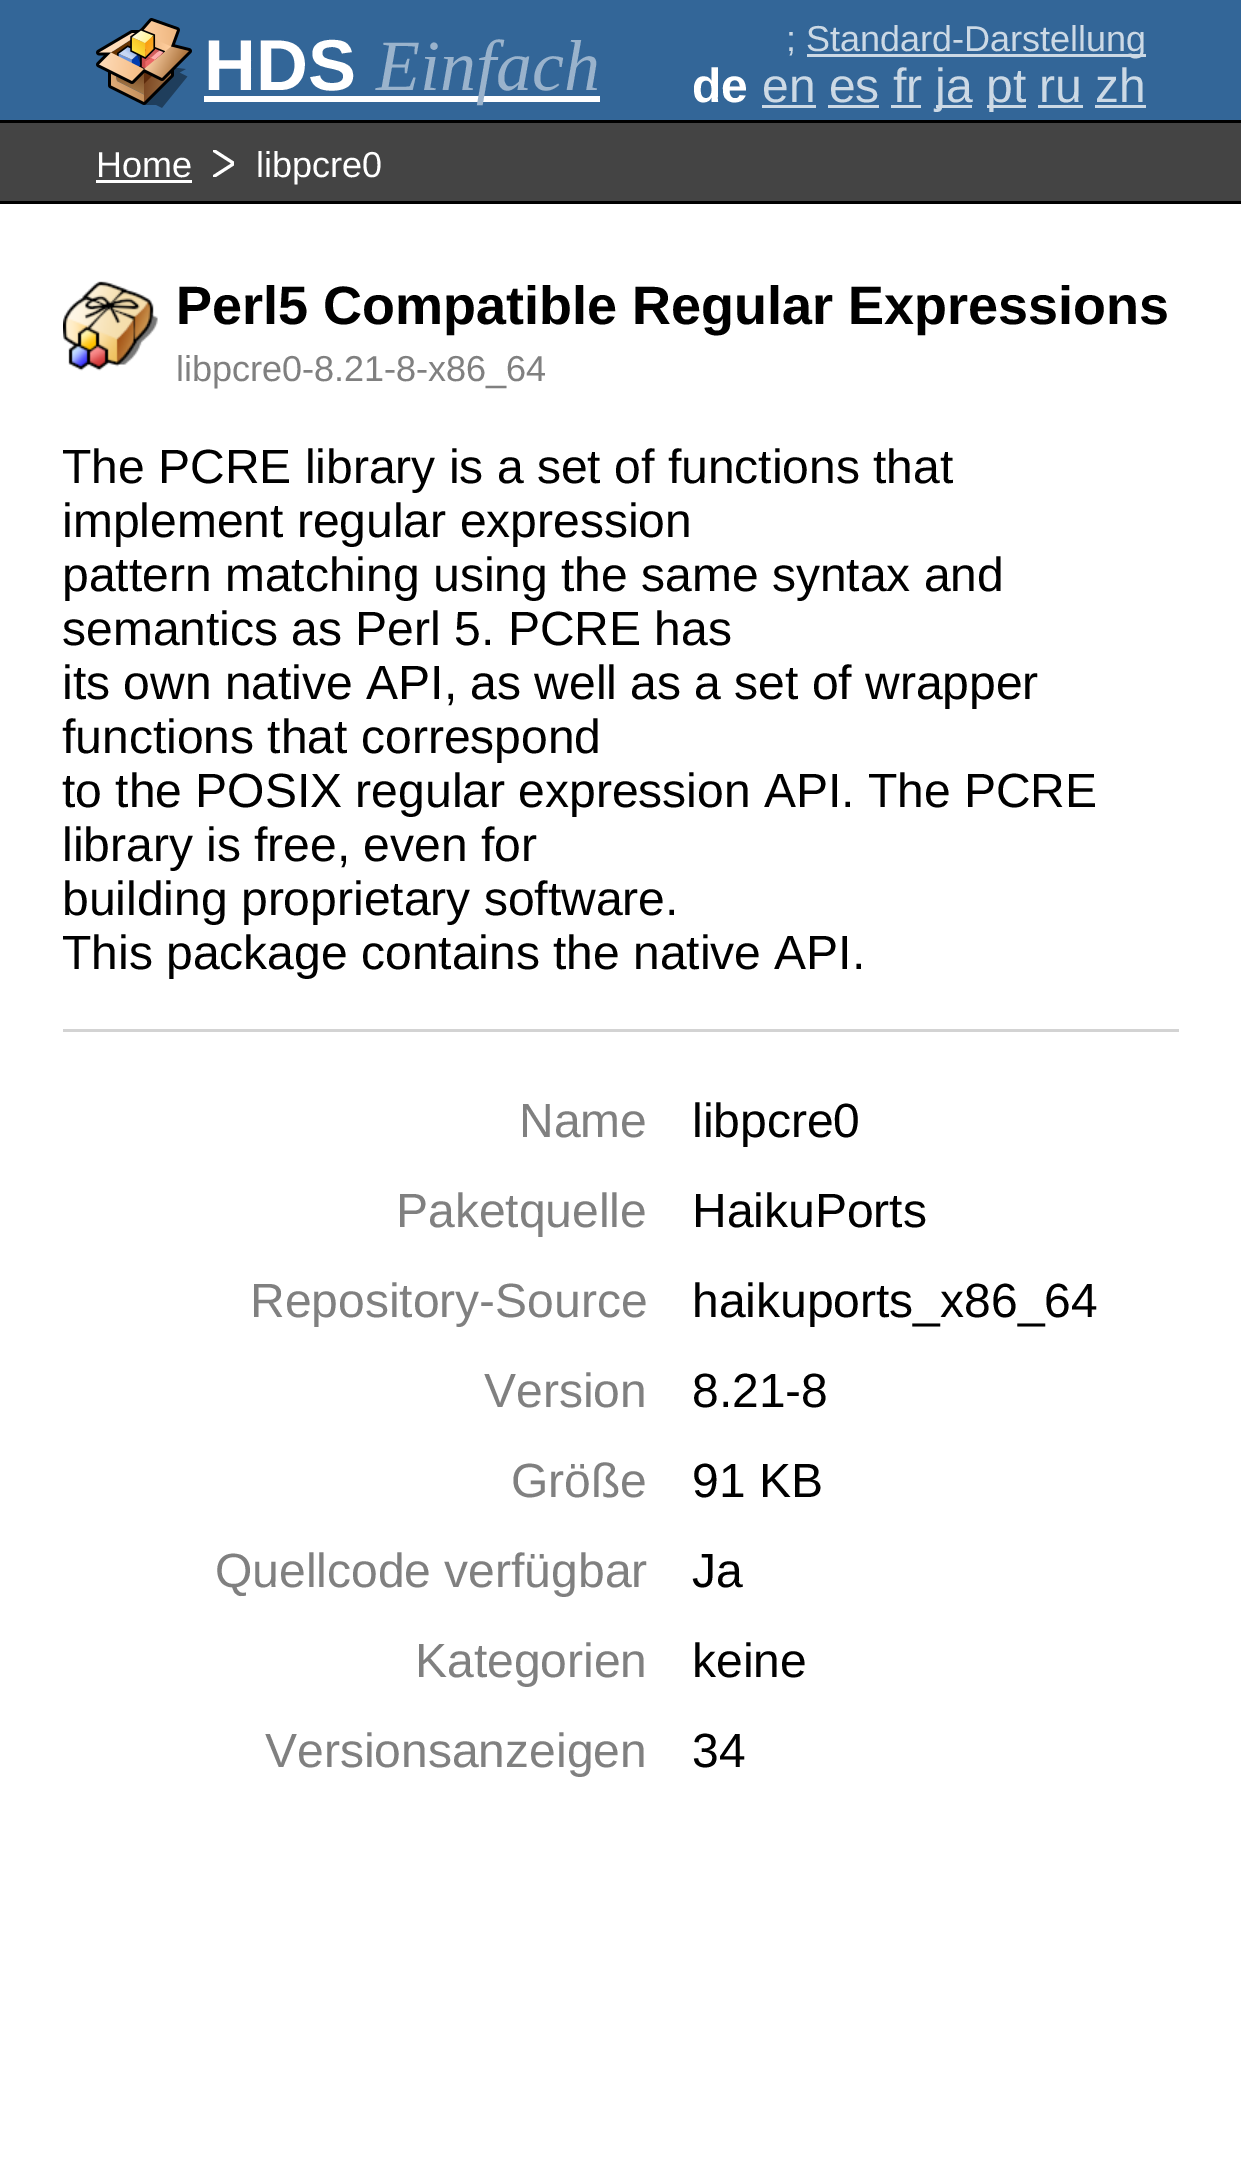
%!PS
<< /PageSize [1241 2166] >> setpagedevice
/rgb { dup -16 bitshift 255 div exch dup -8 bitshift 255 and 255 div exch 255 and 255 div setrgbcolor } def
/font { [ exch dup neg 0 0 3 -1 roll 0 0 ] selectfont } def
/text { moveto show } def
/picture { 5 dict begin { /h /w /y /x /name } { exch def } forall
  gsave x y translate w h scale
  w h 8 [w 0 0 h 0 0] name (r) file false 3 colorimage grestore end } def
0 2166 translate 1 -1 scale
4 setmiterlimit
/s1 { /LiberationSans-Bold 72 font 16#FFFFFF rgb } def
/s2 { /LiberationSerif-Italic 72 font 16#9AB3CC rgb } def
/s3 { /LiberationSans-Regular 36 font 16#CCD9E5 rgb } def
/s4 { /LiberationSans-Bold 48 font 16#FFFFFF rgb } def
/s5 { /LiberationSans-Regular 48 font 16#CCD9E5 rgb } def
/s6 { /LiberationSans-Regular 36 font 16#FFFFFF rgb } def
/s7 { /LiberationSans-Bold 54 font 16#000000 rgb } def
/s8 { /LiberationSans-Regular 36 font 16#808080 rgb } def
/s9 { /LiberationSans-Regular 48 font 16#000000 rgb } def
/s10 { /LiberationSans-Regular 48 font 16#808080 rgb } def
16#FFFFFF rgb
0 0 1241 2166 rectfill
16#336698 rgb
0 0 1241 120 rectfill
16#000000 rgb
0 120 1241 3 rectfill
(pic1.raw) 96 18 96 90 picture
s1
(HDS) 204 90 text
204 96 396 6 rectfill
s2
(Einfach) 376 90 text
s3
(;) 786 51 text
807 54 339 3 rectfill
(Standard-Darstellung) 806 51 text
s4
(de) 692 102 text
s5
(en es fr) 762 102 text
762 105 54 3 rectfill
828 105 51 3 rectfill
891 105 30 3 rectfill
936 105 36 3 rectfill
(ja) 935 102 text
987 105 39 3 rectfill
(pt) 986 102 text
1038 105 45 3 rectfill
(ru zh) 1039 102 text
1095 105 51 3 rectfill
16#444444 rgb
0 123 1241 78 rectfill
16#000000 rgb
0 201 1241 3 rectfill
s6
(Home) 96 177 text
96 180 96 3 rectfill
(libpcre0) 256 177 text
gsave
213 150 21 27 rectclip
3 setlinewidth
213 177 moveto 234 163.5 lineto 213 150 lineto stroke
grestore
(pic2.raw) 63 281 95 90 picture
s7
(Perl5 Compatible Regular Expressions) 176 324 text
s8
(libpcre0-8.21-8-x86_64) 176 381 text
s9
(The PCRE library is a set of functions that) 62 483 text
(implement regular expression) 62 537 text
(pattern matching using the same syntax and) 62 591 text
(semantics as Perl 5. PCRE has) 62 645 text
(its own native API, as well as a set of wrapper) 62 699 text
(functions that correspond) 62 753 text
(to the POSIX regular expression API. The PCRE) 62 807 text
(library is free, even for) 62 861 text
(building proprietary software.) 62 915 text
(This package contains the native API.) 62 969 text
16#D3D3D3 rgb
63 1029 1116 3 rectfill
s10
(Name) 519 1137 text
s9
(libpcre0) 692 1137 text
s10
(Paketquelle) 396 1227 text
s9
(HaikuPorts) 692 1227 text
s10
(Repository-Source) 250 1317 text
s9
(haikuports_x86_64) 692 1317 text
s10
(Version) 484 1407 text
s9
(8.21-8) 692 1407 text
s10
(Größe) 511 1497 text
s9
(91 KB) 692 1497 text
s10
(Quellcode verfügbar) 215 1587 text
s9
(Ja) 692 1587 text
s10
(Kategorien) 415 1677 text
s9
(keine) 692 1677 text
s10
(Versionsanzeigen) 265 1767 text
s9
(34) 692 1767 text
showpage
